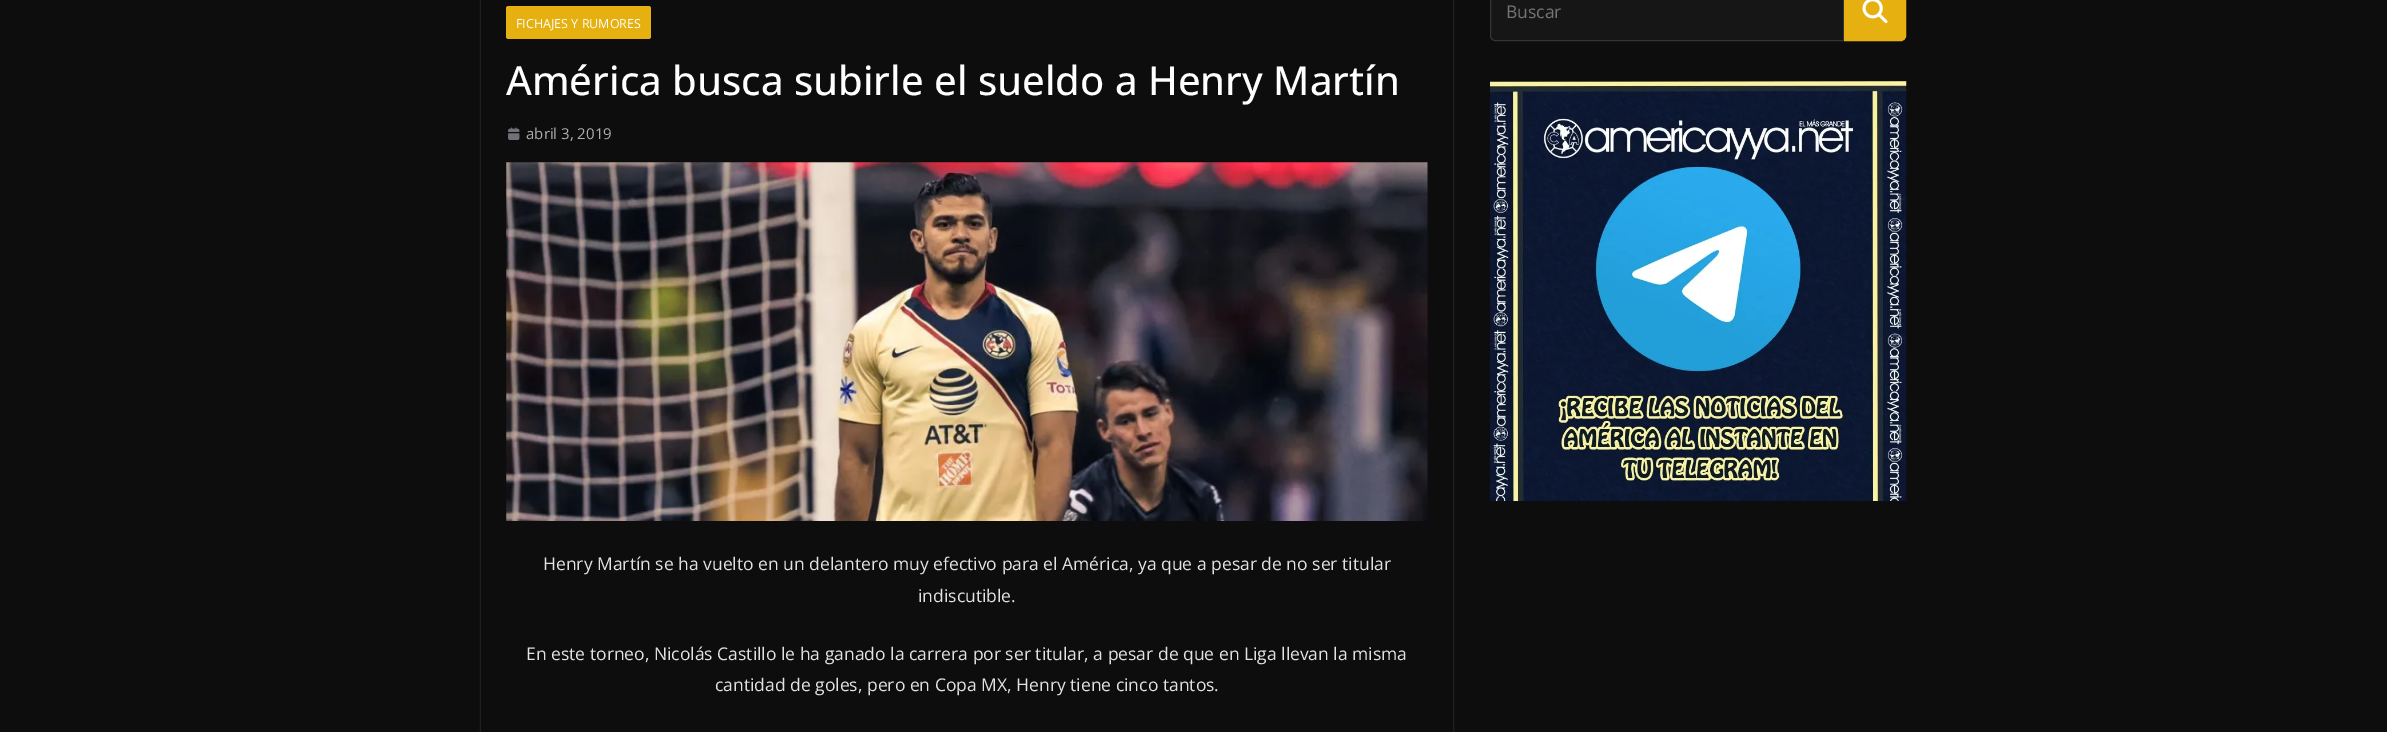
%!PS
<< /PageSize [2387 732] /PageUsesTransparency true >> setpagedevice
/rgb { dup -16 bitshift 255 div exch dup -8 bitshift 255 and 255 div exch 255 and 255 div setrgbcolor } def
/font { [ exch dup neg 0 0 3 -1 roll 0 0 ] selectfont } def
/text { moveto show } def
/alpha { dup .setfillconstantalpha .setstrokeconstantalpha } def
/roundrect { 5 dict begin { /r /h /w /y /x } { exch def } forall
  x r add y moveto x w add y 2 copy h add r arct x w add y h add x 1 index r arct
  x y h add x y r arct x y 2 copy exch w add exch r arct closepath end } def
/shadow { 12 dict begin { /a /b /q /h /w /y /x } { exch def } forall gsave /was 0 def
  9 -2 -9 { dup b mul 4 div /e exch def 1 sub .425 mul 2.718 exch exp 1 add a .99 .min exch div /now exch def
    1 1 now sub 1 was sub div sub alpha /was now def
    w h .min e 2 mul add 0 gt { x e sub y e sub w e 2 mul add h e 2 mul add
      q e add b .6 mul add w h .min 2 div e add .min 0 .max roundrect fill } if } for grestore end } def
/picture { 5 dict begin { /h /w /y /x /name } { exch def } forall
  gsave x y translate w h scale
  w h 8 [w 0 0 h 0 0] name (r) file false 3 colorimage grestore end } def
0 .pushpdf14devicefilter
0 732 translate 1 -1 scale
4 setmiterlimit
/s1 { /OpenSans-Regular 17.5 font 16#757575 rgb } def
/s2 { /OpenSans-Regular 12.5 font 16#FFFFFF rgb } def
/s3 { /OpenSans-Medium 40 font 16#FFFFFF rgb } def
/s4 { /OpenSans-Regular 15 font 16#AEAEAE rgb } def
/s5 { /OpenSans-Regular 17.5 font 16#E3E2E2 rgb } def
16#0D0D0D rgb
0 0 2387 732 rectfill
16#161616 rgb
1495 -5.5 moveto 1843.5 -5.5 lineto 1843.5 40.5 lineto 1495 40.5 lineto 1492.5 40.5 1490.5 38.5 1490.5 36 curveto 1490.5 -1 lineto 1490.5 -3.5 1492.5 -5.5 1495 -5.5 curveto closepath gsave fill grestore
16#343434 rgb
stroke
s1
(Buscar) 1506 18 text
16#E5B010 rgb
1844.5 -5.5 moveto 1901 -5.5 lineto 1903.5 -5.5 1905.5 -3.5 1905.5 -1 curveto 1905.5 36 lineto 1905.5 38.5 1903.5 40.5 1901 40.5 curveto 1844.5 40.5 lineto closepath gsave fill grestore
stroke
(pic1.raw) 1862 0 26 24 picture
(pic2.raw) 1490 81 417 420 picture
gsave
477 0 moveto 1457 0 lineto 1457 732 lineto 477 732 lineto closepath 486 -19 moveto 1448 -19 lineto 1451 -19 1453 -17 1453 -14 curveto 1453 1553 lineto 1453 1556 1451 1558 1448 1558 curveto 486 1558 lineto 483 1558 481 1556 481 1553 curveto 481 -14 lineto 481 -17 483 -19 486 -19 curveto closepath eoclip newpath
16#FFFFFF rgb
481 -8 972 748 5 1 0.24 shadow
grestore
506 6 145 33 2.5 roundrect fill
s2
(FICHAJES Y RUMORES) 516 28 text
s3
(América busca subirle el sueldo a Henry Martín) 506 95 text
(pic3.raw) 508 127 12 13 picture
s4
(abril 3, 2019) 526 139 text
(pic4.raw) 506 162 922 359 picture
s5
(Henry Martín se ha vuelto en un delantero muy efectivo para el América, ya que a pesar de no ser titular) 543 570 text
(indiscutible.) 918 602 text
(En este torneo, Nicolás Castillo le ha ganado la carrera por ser titular, a pesar de que en Liga llevan la misma) 526 660 text
(cantidad de goles, pero en Copa MX, Henry tiene cinco tantos.) 715 691 text
.poppdf14devicefilter showpage
